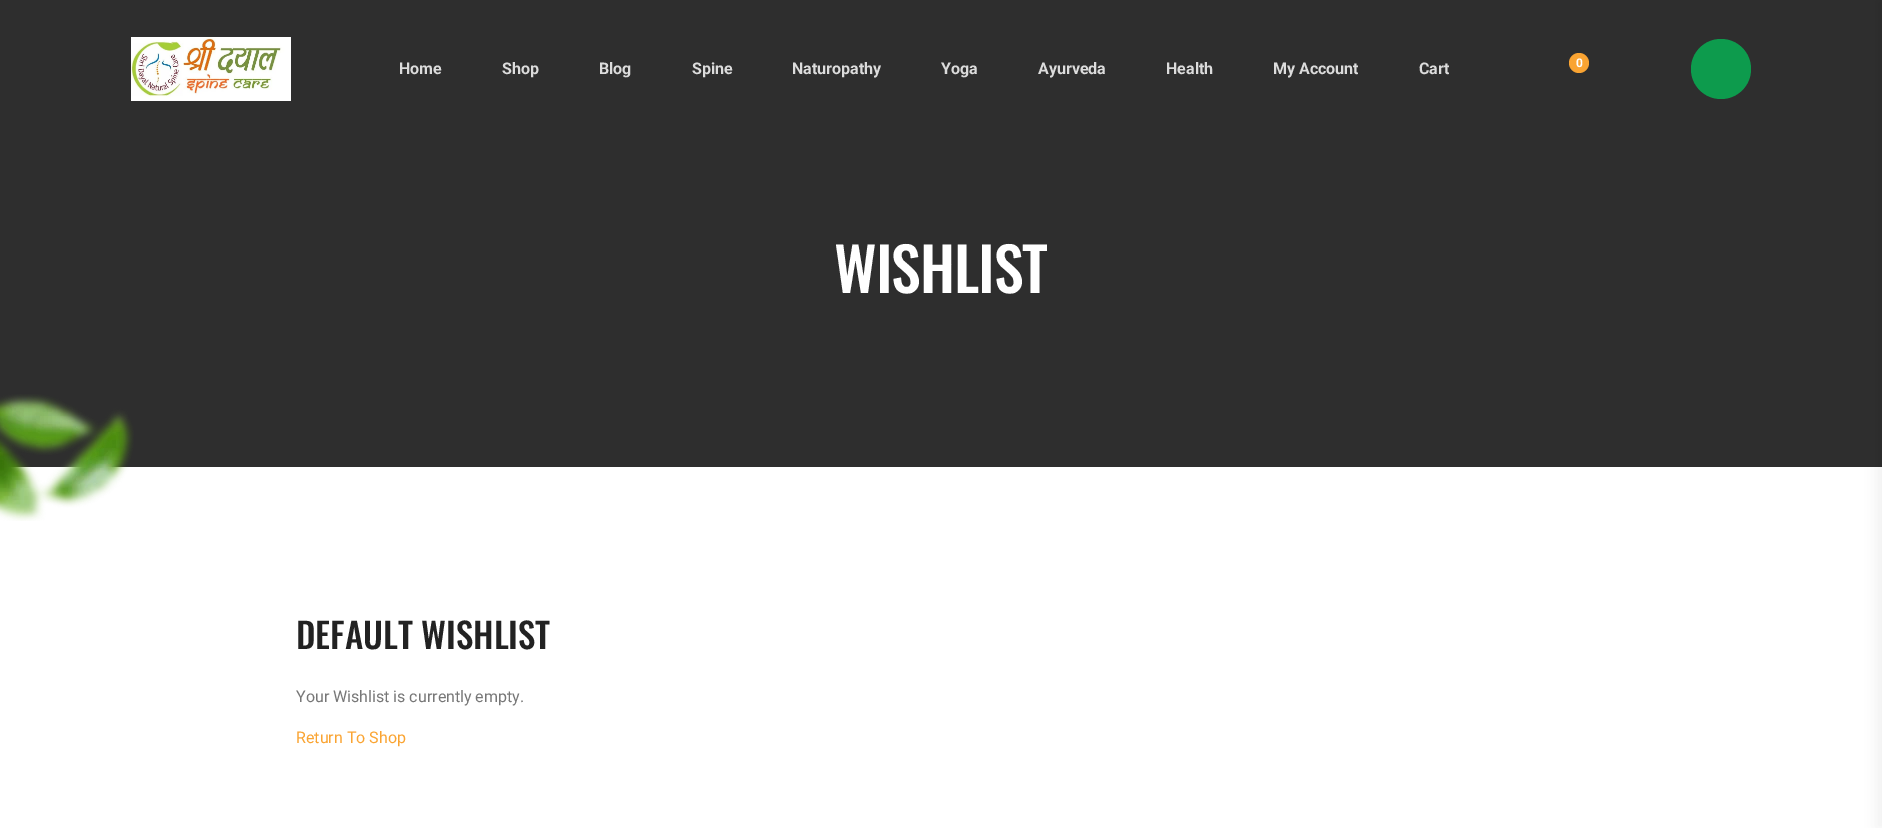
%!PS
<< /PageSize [1882 828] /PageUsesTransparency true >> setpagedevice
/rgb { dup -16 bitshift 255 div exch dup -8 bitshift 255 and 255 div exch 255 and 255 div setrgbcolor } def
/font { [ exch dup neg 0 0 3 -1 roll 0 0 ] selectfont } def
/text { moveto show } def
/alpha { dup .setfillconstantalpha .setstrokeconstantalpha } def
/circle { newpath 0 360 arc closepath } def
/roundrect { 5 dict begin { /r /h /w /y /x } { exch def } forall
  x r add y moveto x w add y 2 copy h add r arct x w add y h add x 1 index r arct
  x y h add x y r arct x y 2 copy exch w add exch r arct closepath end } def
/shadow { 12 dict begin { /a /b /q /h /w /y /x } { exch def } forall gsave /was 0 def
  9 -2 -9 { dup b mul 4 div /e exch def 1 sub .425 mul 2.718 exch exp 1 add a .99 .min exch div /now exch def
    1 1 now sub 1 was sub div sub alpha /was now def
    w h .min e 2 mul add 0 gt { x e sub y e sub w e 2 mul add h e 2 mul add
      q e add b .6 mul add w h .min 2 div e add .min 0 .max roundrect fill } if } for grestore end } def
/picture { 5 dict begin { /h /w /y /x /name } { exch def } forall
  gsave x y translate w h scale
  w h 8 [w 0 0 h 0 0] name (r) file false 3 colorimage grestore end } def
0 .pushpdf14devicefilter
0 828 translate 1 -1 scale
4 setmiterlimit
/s1 { /Roboto-Bold 16 font 16#DCDCDC rgb } def
/s2 { /Roboto-Bold 12 font 16#FFFFFF rgb } def
/s3 { /Oswald-Medium 35 font 16#222222 rgb } def
/s4 { /Roboto-Regular 16 font 16#777777 rgb } def
/s5 { /Roboto-Regular 16 font 16#FAA432 rgb } def
16#FFFFFF rgb
0 0 1882 828 rectfill
16#2E2E2E rgb
0 0 1882 467 rectfill
(pic1.raw) 131 37 160 64 picture
s1
(Home) 399 74 text
(Shop) 502 74 text
(Blog) 599 74 text
(Spine) 692 74 text
(Naturopathy) 792 74 text
(Yoga) 941 74 text
(Ayurveda) 1038 74 text
(Health) 1166 74 text
(My Account) 1273 74 text
(Cart) 1419 74 text
16#FAA432 rgb
1579 63 10 circle fill
s2
(0) 1576 67 text
16#0D9B4D rgb
1721 69 30 circle fill
16#000000 rgb
1876 0 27 828 0 7 0.06 shadow
/Oswald-Medium 60 font
16#FFFFFF rgb
834 293 moveto -1 0 (WISHLIST) ashow
(pic2.raw) 0 394 134 127 picture
s3
(DEFAULT WISHLIST) 296 649 text
s4
(Your Wishlist is currently empty.) 296 702 text
s5
(Return To Shop) 296 743 text
.poppdf14devicefilter showpage
